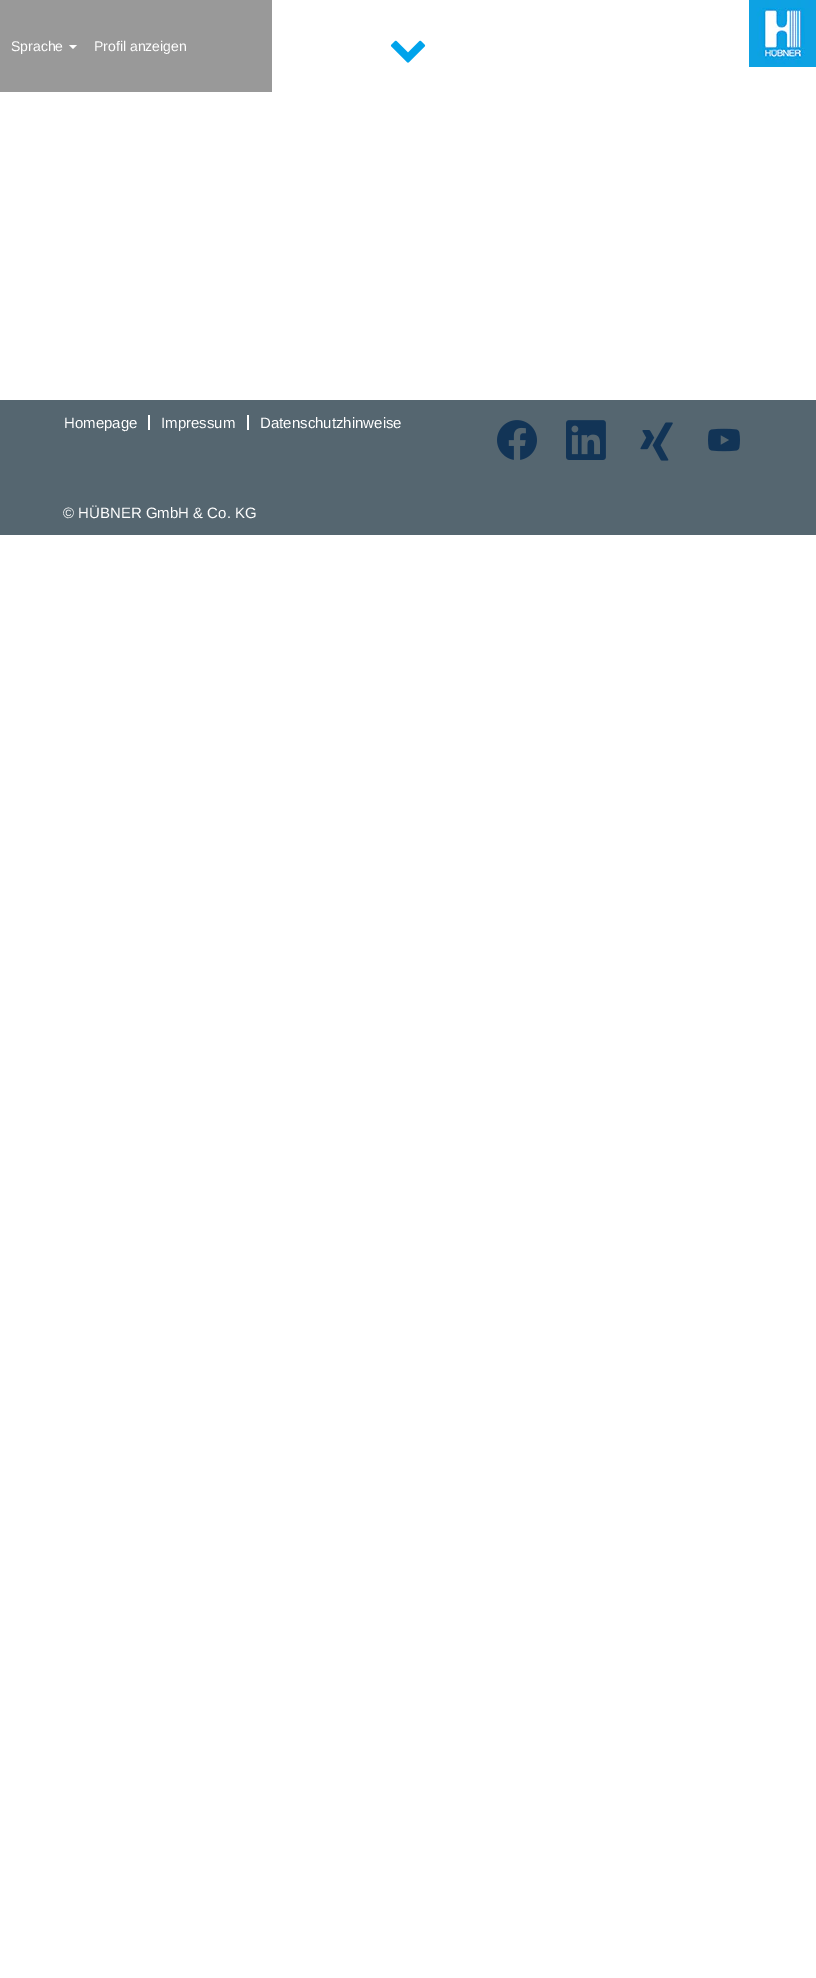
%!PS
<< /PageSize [816 1978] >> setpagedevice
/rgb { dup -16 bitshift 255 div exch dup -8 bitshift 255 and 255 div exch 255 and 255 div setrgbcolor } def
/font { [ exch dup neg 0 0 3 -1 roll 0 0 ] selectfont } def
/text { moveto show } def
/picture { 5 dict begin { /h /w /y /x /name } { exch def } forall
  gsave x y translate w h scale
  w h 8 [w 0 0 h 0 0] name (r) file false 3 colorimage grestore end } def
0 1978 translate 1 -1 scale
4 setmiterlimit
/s1 { /LiberationSans-Regular 14 font 16#FFFFFF rgb } def
/s2 { /LiberationSans-Regular 15 font 16#FFFFFF rgb } def
16#FFFFFF rgb
0 0 816 1978 rectfill
16#999999 rgb
0 0 272 92 rectfill
s1
(Sprache) 11 51 text
69 45 moveto 77 45 lineto 73 49 lineto closepath fill
(Profil anzeigen) 94 51 text
(pic1.raw) 390 40 36 23 picture
(pic2.raw) 749 0 67 67 picture
16#556670 rgb
0 400 816 135 rectfill
16#FFFFFF rgb
148 415 2 15 rectfill
s2
(Homepage) 64 428 text
247 415 2 15 rectfill
(Impressum) 161 428 text
(Datenschutzhinweise) 260 428 text
(pic3.raw) 497 420 40 40 picture
(pic4.raw) 566 420 40 40 picture
(pic5.raw) 640 422 33 39 picture
(pic6.raw) 708 428 32 24 picture
(© HÜBNER GmbH & Co. KG) 63 518 text
showpage
